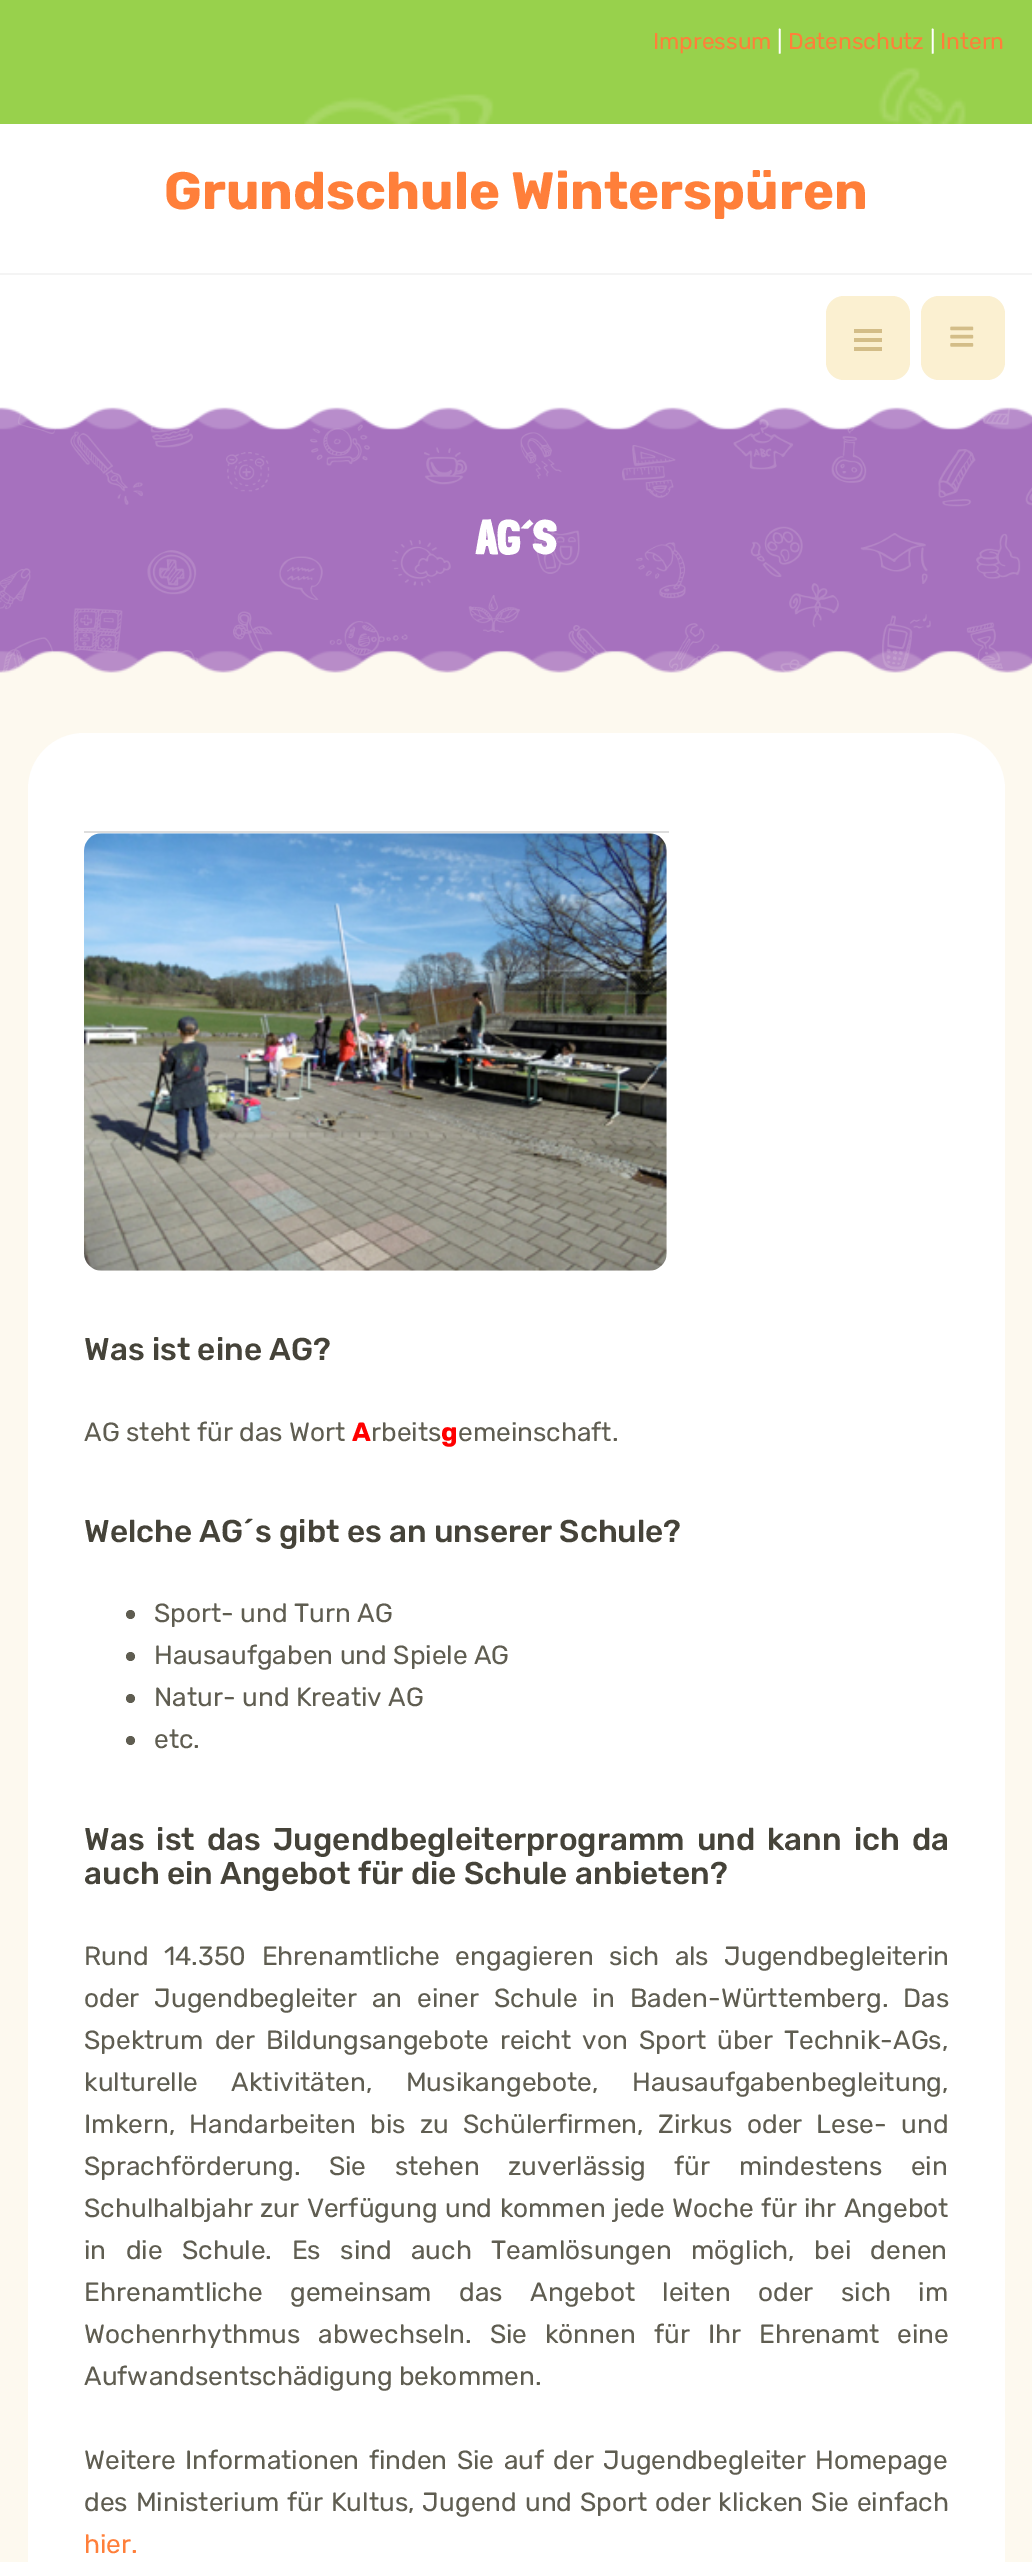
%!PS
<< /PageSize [1032 2562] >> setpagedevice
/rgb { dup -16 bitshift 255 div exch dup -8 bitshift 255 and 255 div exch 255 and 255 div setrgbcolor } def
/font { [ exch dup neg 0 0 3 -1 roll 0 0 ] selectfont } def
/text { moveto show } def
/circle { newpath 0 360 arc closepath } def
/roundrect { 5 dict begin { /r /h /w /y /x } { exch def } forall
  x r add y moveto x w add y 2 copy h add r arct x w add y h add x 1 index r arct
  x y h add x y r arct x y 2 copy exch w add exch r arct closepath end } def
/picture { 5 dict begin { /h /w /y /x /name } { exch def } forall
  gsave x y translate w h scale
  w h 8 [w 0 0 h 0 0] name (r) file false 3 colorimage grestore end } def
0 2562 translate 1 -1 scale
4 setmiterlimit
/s1 { /Rubik-Light 22.75 font 16#FF7F3A rgb } def
/s2 { /Rubik-Light 22.75 font 16#FFFFFF rgb } def
/s3 { /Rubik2-Light 52.5 font 16#FF7F3A rgb } def
/s4 { /LondrinaSolid-Black 49 font 16#FFFFFF rgb } def
/s5 { /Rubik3-Light 31.5 font 16#454339 rgb } def
/s6 { /Rubik-Light 26.25 font 16#5F5D51 rgb } def
/s7 { /Rubik2-Light 26.25 font 16#FF0000 rgb } def
/s8 { /Rubik-Light 26.25 font 16#FF7F3A rgb } def
16#FDF9EF rgb
0 0 1032 2562 rectfill
16#98D14C rgb
0 0 1032 124 rectfill
(pic1.raw) 304 67 662 57 picture
s1
(Impressum) 653 49 text
s2
(|) 777 49 text
s1
(Datenschutz) 788 49 text
s2
(|) 930 49 text
s1
(Intern) 940 49 text
16#FFFFFF rgb
0 124 1032 149 rectfill
s3
(Grundschule Winterspüren) 164 209 text
16#FFFFFF rgb
0 275 1032 126 rectfill
16#F4F4F4 rgb
0 273 1032 2 rectfill
16#FBF0D1 rgb
826 296 84 84 18 roundrect fill
16#D3BD88 rgb
854 329 28 4 rectfill
854 338 28 4 rectfill
854 347 28 4 rectfill
16#FBF0D1 rgb
921 296 84 84 18 roundrect fill
(pic2.raw) 950 326 24 21 picture
16#A671BE rgb
0 407 1032 266 rectfill
(pic4.raw) 0 407 1032 266 picture
(pic3.raw) 0 401 1032 29 picture
s4
(AG´S) 476 554 text
(pic5.raw) 0 650 1032 27 picture
28 733 977 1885 56 roundrect fill
16#DDDDDD rgb
84 831 585 2 rectfill
(pic6.raw) 84 833 583 438 picture
s5
(Was ist eine AG?) 84 1360 text
s6
(AG steht für das Wort) 84 1441 text
s7
(A) 352 1441 text
s6
(rbeits) 371 1441 text
s7
(g) 441 1441 text
s6
(emeinschaft.) 458 1441 text
s5
(Welche AG´s gibt es an unserer Schule?) 84 1542 text
16#5F5D51 rgb
130.5 1614.5 4.5 circle fill
s6
(Sport- und Turn AG) 154 1622 text
130.5 1656.5 4.5 circle fill
(Hausaufgaben und Spiele AG) 154 1664 text
130.5 1698.5 4.5 circle fill
(Natur- und Kreativ AG) 154 1706 text
130.5 1740.5 4.5 circle fill
(etc.) 154 1748 text
/Rubik3-Light 31.5 font
16#454339 rgb
84 1850 moveto 4.75 0 32 (Was ist das Jugendbegleiterprogramm und kann ich da) widthshow
(auch ein Angebot für die Schule anbieten?) 84 1884 text
/Rubik-Light 26.25 font
16#5F5D51 rgb
84 1965 moveto 9 0 32 (Rund 14.350 Ehrenamtliche engagieren sich als Jugendbegleiterin) widthshow
84 2007 moveto 8.5 0 32 (oder Jugendbegleiter an einer Schule in Baden-Württemberg. Das) widthshow
84 2049 moveto 4.5 0 32 (Spektrum der Bildungsangebote reicht von Sport über Technik-AGs,) widthshow
84 2091 moveto 27 0 32 (kulturelle Aktivitäten, Musikangebote, Hausaufgabenbegleitung,) widthshow
84 2133 moveto 7.75 0 32 (Imkern, Handarbeiten bis zu Schülerfirmen, Zirkus oder Lese- und) widthshow
84 2175 moveto 22 0 32 (Sprachförderung. Sie stehen zuverlässig für mindestens ein) widthshow
84 2217 moveto 1 0 32 (Schulhalbjahr zur Verfügung und kommen jede Woche für ihr Angebot) widthshow
84 2259 moveto 13 0 32 (in die Schule. Es sind auch Teamlösungen möglich, bei denen) widthshow
84 2301 moveto 21 0 32 (Ehrenamtliche gemeinsam das Angebot leiten oder sich im) widthshow
84 2343 moveto 11.5 0 32 (Wochenrhythmus abwechseln. Sie können für Ihr Ehrenamt eine) widthshow
(Aufwandsentschädigung bekommen.) 84 2385 text
84 2469 moveto 3 0 32 (Weitere Informationen finden Sie auf der Jugendbegleiter Homepage) widthshow
84 2511 moveto 1.5 0 32 (des Ministerium für Kultus, Jugend und Sport oder klicken Sie einfach) widthshow
s8
(hier.) 84 2553 text
showpage
